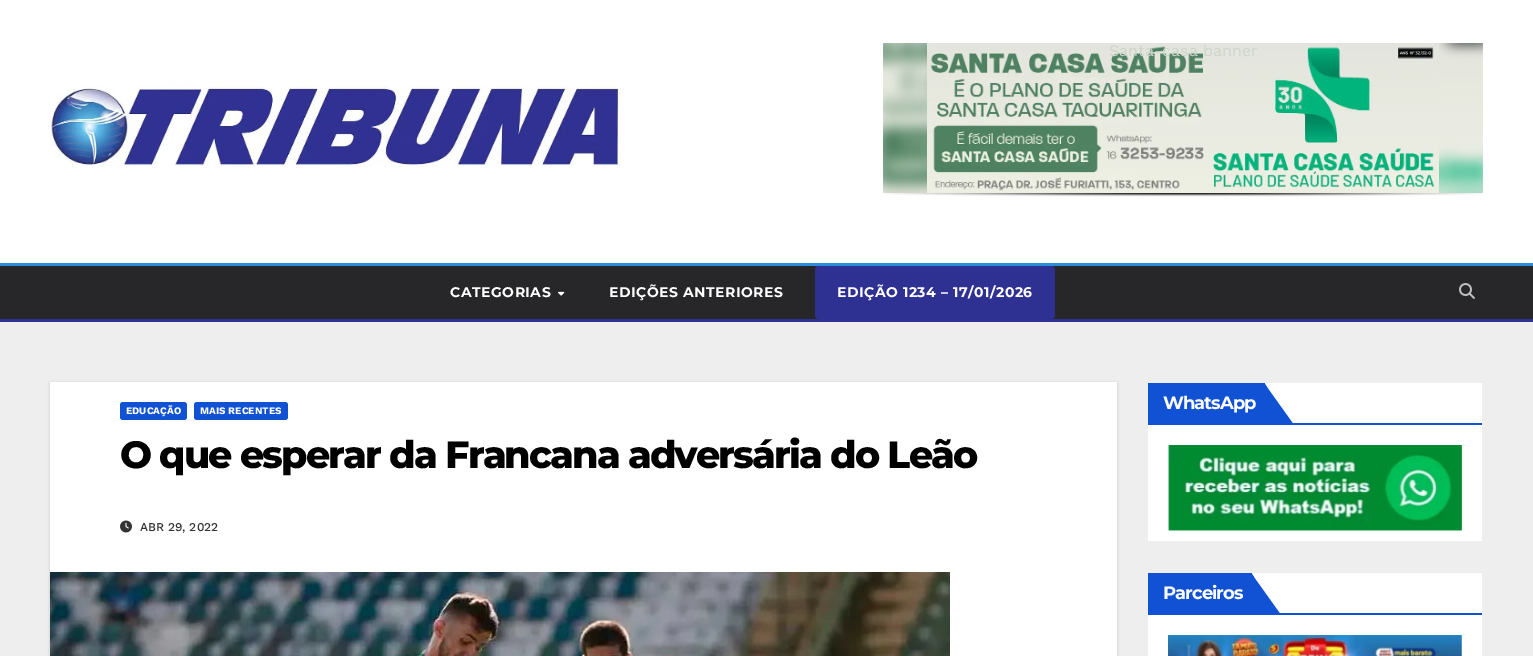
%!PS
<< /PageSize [1533 656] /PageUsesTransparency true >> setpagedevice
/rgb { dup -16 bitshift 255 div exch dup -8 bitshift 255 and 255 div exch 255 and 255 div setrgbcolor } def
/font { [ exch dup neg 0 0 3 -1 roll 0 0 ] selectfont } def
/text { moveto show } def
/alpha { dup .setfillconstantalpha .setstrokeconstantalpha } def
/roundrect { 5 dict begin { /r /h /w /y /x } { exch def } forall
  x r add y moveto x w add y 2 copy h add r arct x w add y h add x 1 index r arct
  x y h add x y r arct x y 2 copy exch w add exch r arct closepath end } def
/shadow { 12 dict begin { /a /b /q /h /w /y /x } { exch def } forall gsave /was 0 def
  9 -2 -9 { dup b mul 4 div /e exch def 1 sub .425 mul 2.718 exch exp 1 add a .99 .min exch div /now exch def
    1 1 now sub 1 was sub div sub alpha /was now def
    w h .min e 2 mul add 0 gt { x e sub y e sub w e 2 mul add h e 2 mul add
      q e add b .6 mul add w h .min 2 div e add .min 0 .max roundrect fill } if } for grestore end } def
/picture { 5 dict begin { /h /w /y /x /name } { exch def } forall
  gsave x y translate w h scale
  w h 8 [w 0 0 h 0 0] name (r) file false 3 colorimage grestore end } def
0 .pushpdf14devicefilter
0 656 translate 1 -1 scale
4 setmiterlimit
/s1 { /WorkSans-Regular 16 font 16#CCD5CA rgb } def
/s2 { /WorkSans-Bold 10 font 16#FFFFFF rgb } def
/s3 { /WorkSans-Medium 12 font 16#333333 rgb } def
16#EEEEEE rgb
0 0 1533 656 rectfill
16#FFFFFF rgb
0 0 1533 263 rectfill
(pic1.raw) 883 43 600 150 picture
(pic2.raw) 927 43 512 150 picture
s1
(Santa-casa banner) 1109 56 text
(pic3.raw) 885 193 596 4 picture
(pic4.raw) 50 85 571 82 picture
16#2C8DDD rgb
0 263 1533 3 rectfill
16#2E3192 rgb
0 319 1533 3 rectfill
16#27272A rgb
0 266 1533 53 rectfill
/Montserrat-Bold 14 font
16#FFFFFF rgb
450 297 moveto 0.5 0 (CATEGORIAS) ashow
(pic5.raw) 558 291 7 5 picture
609 297 moveto 0.5 0 (EDIÇÕES ANTERIORES) ashow
16#2E3192 rgb
815 266 240 53 4 roundrect fill
16#FFFFFF rgb
837 297 moveto 0.5 0 (EDIÇÃO 1234 – 17/01/2026) ashow
(pic6.raw) 1459 283 16 16 picture
16#000000 rgb
50 383 1067 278 0 1.5 0.15 shadow
16#FFFFFF rgb
50 382 1067 274 rectfill
16#1151D3 rgb
120 402 67 18 3 roundrect fill
s2
(EDUCAÇÃO) 126 414 text
16#1151D3 rgb
194 402 94 18 3 roundrect fill
s2
(MAIS RECENTES) 200 414 text
/Montserrat-ExtraBold 38 font
16#000000 rgb
120 468 moveto -1.9 0 (O que esperar da Francana adversária do Leão) ashow
(pic7.raw) 120 520 12 13 picture
s3
(ABR 29, 2022) 140 531 text
(pic8.raw) 50 572 900 84 picture
16#FFFFFF rgb
1148 383 334 158 rectfill
16#1151D3 rgb
1148 423 334 2 rectfill
1148 383 117 40 rectfill
/Montserrat-Bold 18 font
16#FFFFFF rgb
1163 409 moveto -1 0 (WhatsApp) ashow
16#1151D3 rgb
1264 383 moveto 1264 425 lineto 1294 425 lineto closepath fill
1264 383 moveto 1264 425 lineto 1267 422 lineto 1267 387 lineto closepath fill
(pic9.raw) 1168 445 294 86 picture
16#FFFFFF rgb
1148 573 334 83 rectfill
16#1151D3 rgb
1148 613 334 2 rectfill
1148 573 104 40 rectfill
16#FFFFFF rgb
1163 599 moveto -1 0 (Parceiros) ashow
16#1151D3 rgb
1251 573 moveto 1251 615 lineto 1281 615 lineto closepath fill
1251 573 moveto 1251 615 lineto 1254 612 lineto 1254 577 lineto closepath fill
(pic10.raw) 1168 635 294 21 picture
.poppdf14devicefilter showpage
